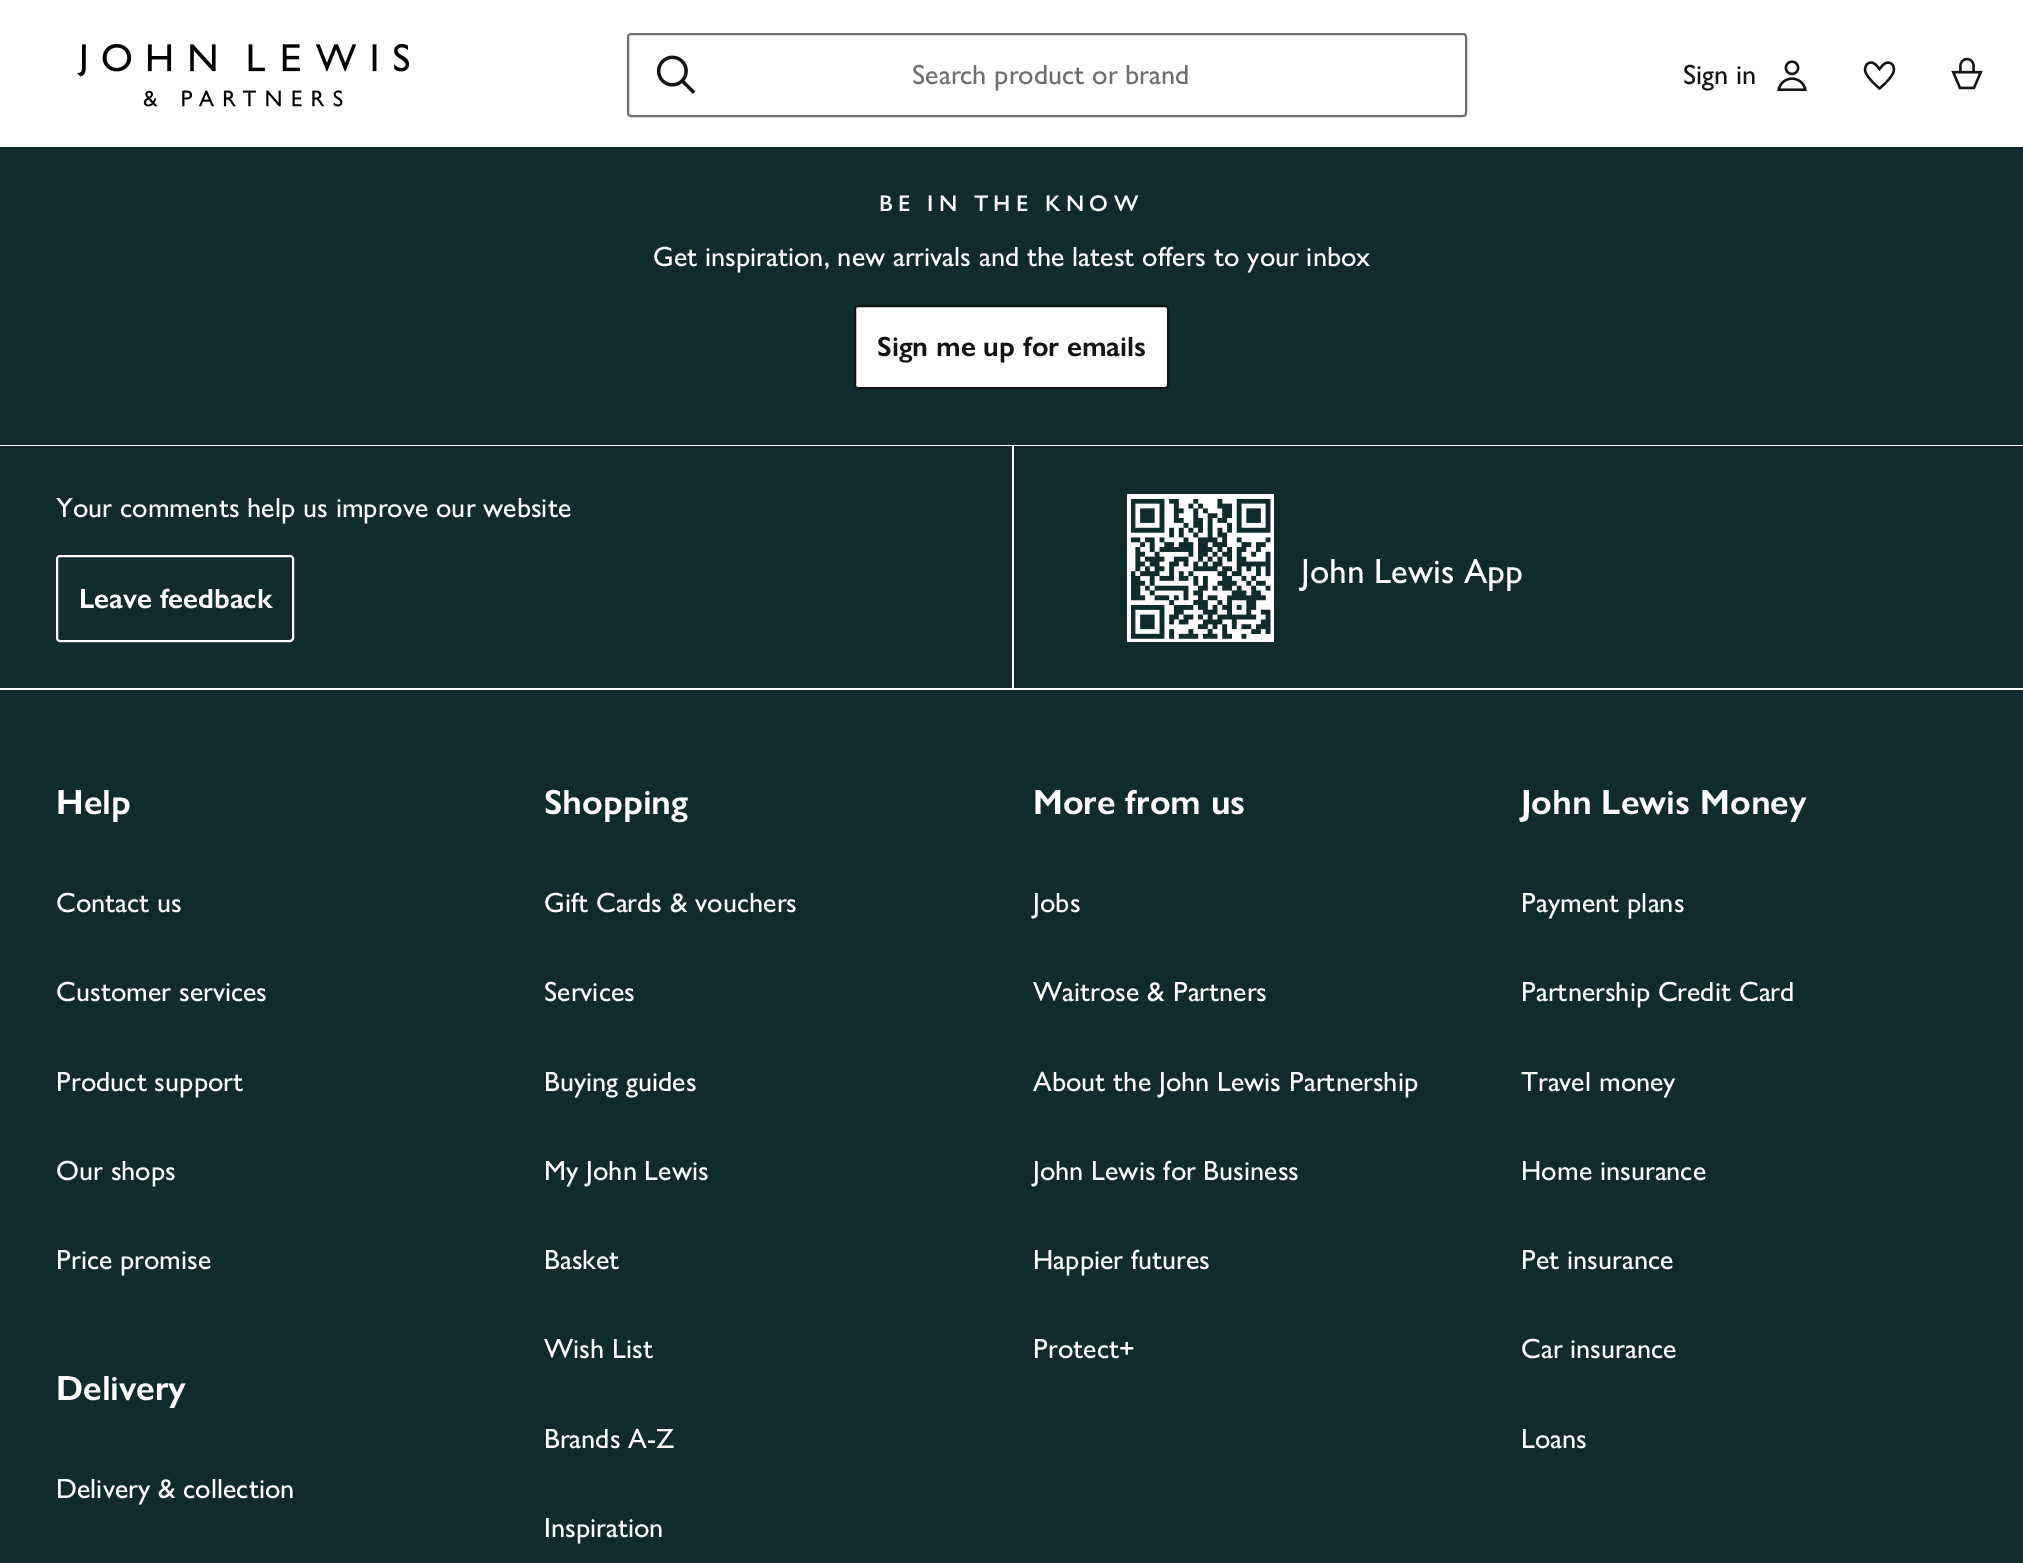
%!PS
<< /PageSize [2023 1563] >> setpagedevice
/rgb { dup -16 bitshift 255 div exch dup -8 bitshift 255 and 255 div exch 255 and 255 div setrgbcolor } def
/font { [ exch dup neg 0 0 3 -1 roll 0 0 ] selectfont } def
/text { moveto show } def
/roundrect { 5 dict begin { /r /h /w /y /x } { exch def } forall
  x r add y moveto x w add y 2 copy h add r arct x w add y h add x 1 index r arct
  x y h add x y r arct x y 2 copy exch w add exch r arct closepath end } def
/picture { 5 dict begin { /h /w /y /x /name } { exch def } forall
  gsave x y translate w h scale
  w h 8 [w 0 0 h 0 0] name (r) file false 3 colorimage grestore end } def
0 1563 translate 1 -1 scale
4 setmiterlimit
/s1 { /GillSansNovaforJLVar-Regular 28 font 16#6F6F6F rgb } def
/s2 { /GillSansNovaforJLVar-Regular 28 font 16#141414 rgb } def
/s3 { /GillSansNovaforJLVar-Regular 28 font 16#FFFFFF rgb } def
/s4 { /GillSansNovaforJLVar-SemiBold 28 font 16#141414 rgb } def
/s5 { /GillSansNovaforJLVar-SemiBold 28 font 16#FFFFFF rgb } def
/s6 { /GillSansNovaforJLVar-Regular 35 font 16#FFFFFF rgb } def
/s7 { /GillSansNovaforJLVar-SemiBold 35 font 16#FFFFFF rgb } def
16#102B2B rgb
0 0 2023 1563 rectfill
16#FFFFFF rgb
0 0 2023 147 rectfill
(pic1.raw) 77 44 333 63 picture
16#6F6F6F rgb
2 setlinewidth
628 34 838 82 3 roundrect stroke
(pic2.raw) 656 55 40 39 picture
s1
(Search product or brand) 912 84 text
s2
(Sign in) 1683 84 text
(pic3.raw) 1777 60 30 31 picture
(pic4.raw) 1863 61 33 29 picture
(pic5.raw) 1951 57 32 33 picture
16#FFFFFF rgb
0 445 2023 1 rectfill
/GillSansNovaforJLVar-Medium 22.75 font
879 211 moveto 5.25 0 (BE IN THE KNOW) ashow
s3
(Get inspiration, new arrivals and the latest offers to your inbox) 653 266 text
855 306 313 82 3 roundrect gsave fill grestore
16#141414 rgb
stroke
s4
(Sign me up for emails) 877 356 text
16#FFFFFF rgb
0 688 2023 2 rectfill
s3
(Your comments help us improve our website) 56 517 text
57 556 236 85 3 roundrect stroke
s5
(Leave feedback) 79 608 text
1012 446 2 242 rectfill
1127 494 147 148 rectfill
(pic6.raw) 1131 499 140 140 picture
s6
(John Lewis App) 1301 583 text
s7
(Help) 56 814 text
s3
(Contact us) 56 912 text
(Customer services) 56 1001 text
(Product support) 56 1091 text
(Our shops) 56 1180 text
(Price promise) 56 1269 text
s7
(Delivery) 56 1400 text
s3
(Delivery & collection) 56 1498 text
s7
(Shopping) 544 814 text
s3
(Gift Cards & vouchers) 544 912 text
(Services) 544 1001 text
(Buying guides) 544 1091 text
(My John Lewis) 544 1180 text
(Basket) 544 1269 text
(Wish List) 544 1358 text
(Brands A-Z) 544 1448 text
(Inspiration) 544 1537 text
s7
(More from us) 1033 814 text
s3
(Jobs) 1033 912 text
(Waitrose & Partners) 1033 1001 text
(About the John Lewis Partnership) 1033 1091 text
(John Lewis for Business) 1033 1180 text
(Happier futures) 1033 1269 text
(Protect+) 1033 1358 text
s7
(John Lewis Money) 1521 814 text
s3
(Payment plans) 1521 912 text
(Partnership Credit Card) 1521 1001 text
(Travel money) 1521 1091 text
(Home insurance) 1521 1180 text
(Pet insurance) 1521 1269 text
(Car insurance) 1521 1358 text
(Loans) 1521 1448 text
showpage
